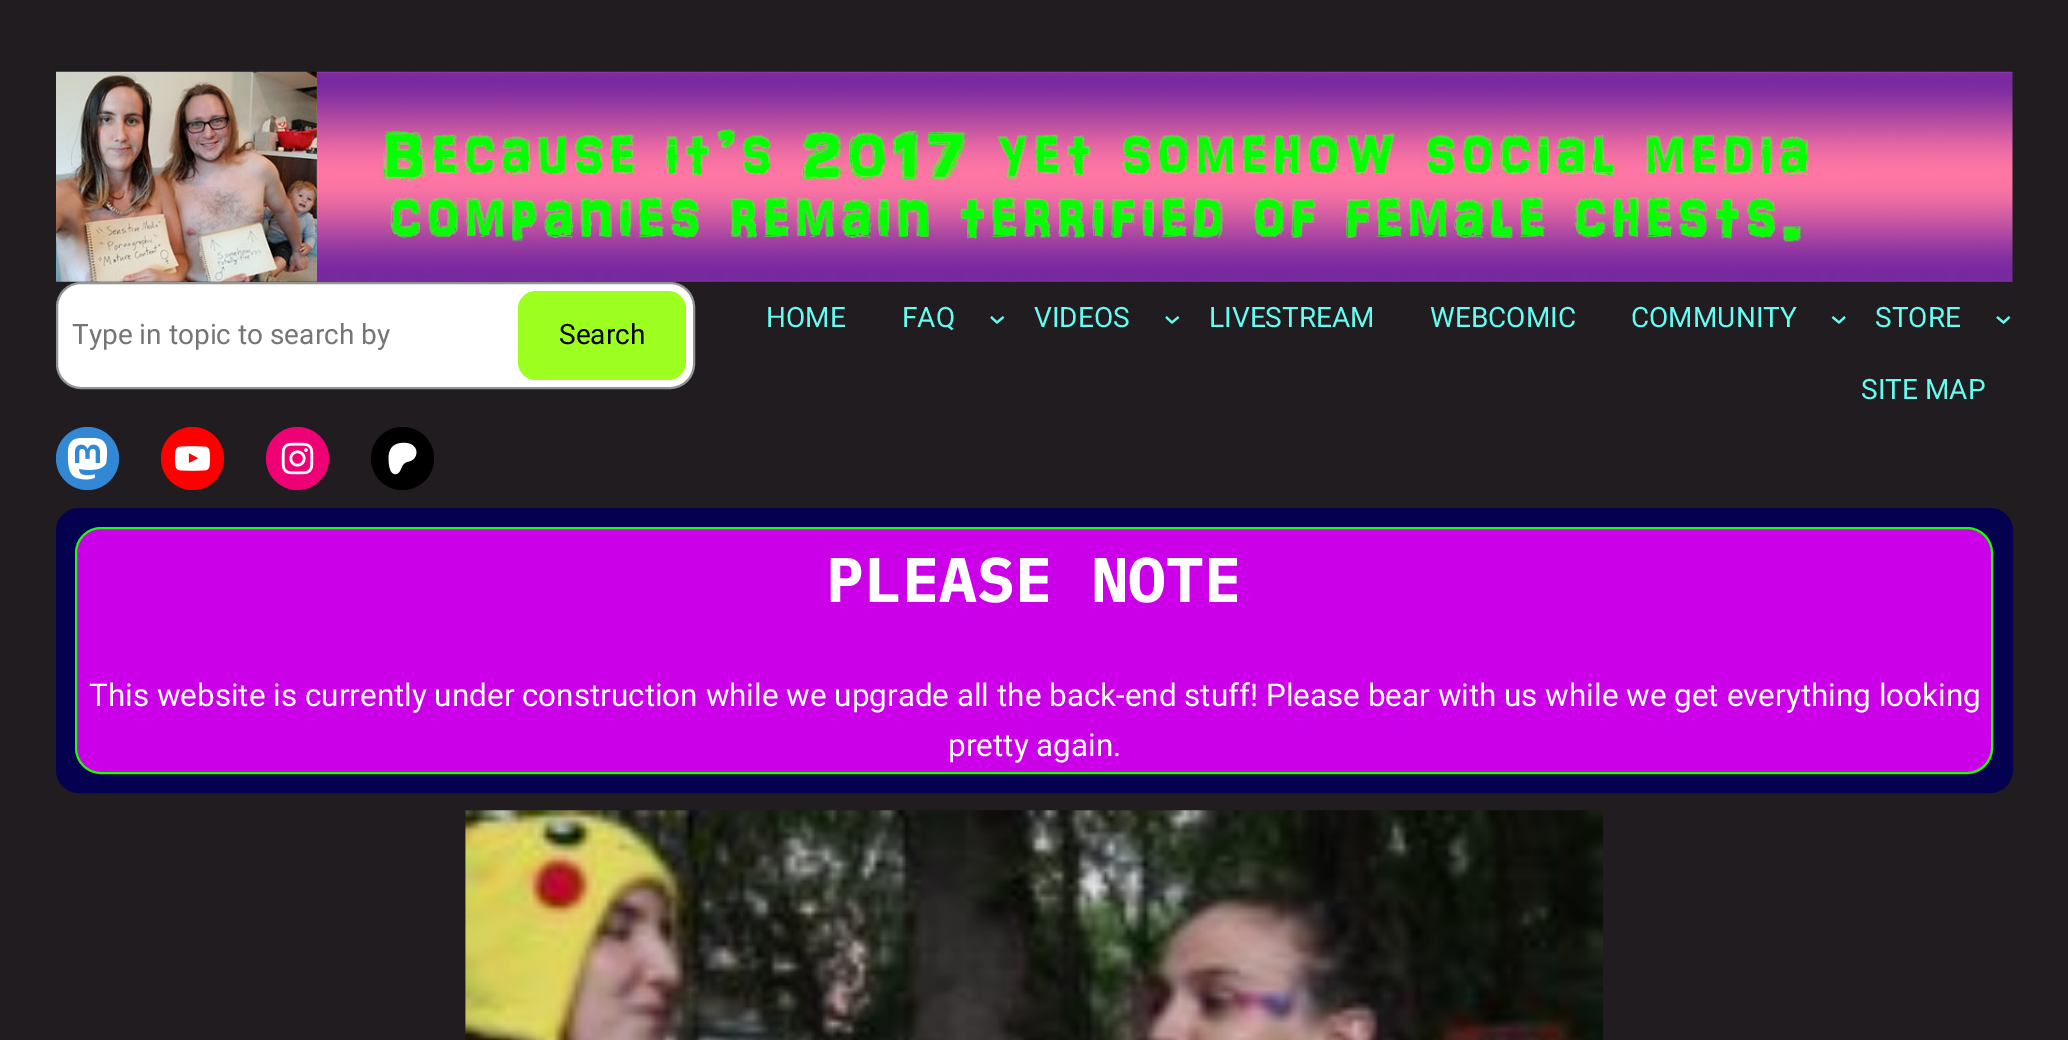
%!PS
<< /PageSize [2068 1040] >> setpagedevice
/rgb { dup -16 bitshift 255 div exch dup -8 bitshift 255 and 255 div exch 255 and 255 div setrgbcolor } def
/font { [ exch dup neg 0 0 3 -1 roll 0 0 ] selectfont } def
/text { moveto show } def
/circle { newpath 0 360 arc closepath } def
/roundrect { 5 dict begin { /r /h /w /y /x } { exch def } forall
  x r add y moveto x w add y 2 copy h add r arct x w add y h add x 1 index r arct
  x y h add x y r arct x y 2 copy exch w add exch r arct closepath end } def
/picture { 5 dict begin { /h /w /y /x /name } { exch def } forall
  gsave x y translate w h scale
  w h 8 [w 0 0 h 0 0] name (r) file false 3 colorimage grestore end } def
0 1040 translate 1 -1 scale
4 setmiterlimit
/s1 { /Roboto-Regular 28 font 16#757575 rgb } def
/s2 { /Roboto-Regular 28 font 16#000000 rgb } def
/s3 { /Roboto-Regular 28 font 16#66FCF1 rgb } def
/s4 { /IBMPlexMono-Bold 63 font 16#FFFFFF rgb } def
/s5 { /Roboto-Regular 31.42 font 16#FFFFFF rgb } def
16#201C20 rgb
0 0 2068 1040 rectfill
(pic1.raw) 56 71 1957 211 picture
16#FFFFFF rgb
57 283 637 105 24 roundrect gsave fill grestore
16#949494 rgb
2 setlinewidth
stroke
s1
(Type in topic to search by) 72 344 text
16#9DFF20 rgb
518 291 168 89 18 roundrect fill
s2
(Search) 559 344 text
s3
(HOME) 766 327 text
(FAQ) 902 327 text
2.1 setlinewidth
991 317 moveto 997 322.5 lineto 1003.5 317 lineto stroke
(VIDEOS) 1034 327 text
1166 317 moveto 1172 322.5 lineto 1178.5 317 lineto stroke
(LIVESTREAM) 1209 327 text
(WEBCOMIC) 1430 327 text
(COMMUNITY) 1631 327 text
1832.5 317 moveto 1839 322.5 lineto 1845 317 lineto stroke
(STORE) 1875 327 text
1997 317 moveto 2003.5 322.5 lineto 2009.5 317 lineto stroke
(SITE MAP) 1861 399 text
16#3288D4 rgb
87.5 458.5 31.5 circle fill
(pic2.raw) 67 438 41 42 picture
16#FF0000 rgb
192.5 458.5 31.5 circle fill
(pic3.raw) 175 446 35 25 picture
16#F00075 rgb
297.5 458.5 31.5 circle fill
(pic4.raw) 281 442 33 33 picture
16#000000 rgb
402.5 458.5 31.5 circle fill
(pic5.raw) 388 442 29 33 picture
16#050151 rgb
65.5 517.5 1938 266 13.5 roundrect gsave fill grestore
19 setlinewidth
stroke
16#CC00E8 rgb
76 528 1916 245 25 roundrect gsave fill grestore
16#17FF00 rgb
2 setlinewidth
stroke
s4
(PLEASE NOTE) 826 602 text
s5
(This website is currently under construction while we upgrade all the back-end stuff! Please bear with us while we get everything looking) 89 706 text
(pretty again.) 948 756 text
(pic6.raw) 465 810 1138 230 picture
showpage
